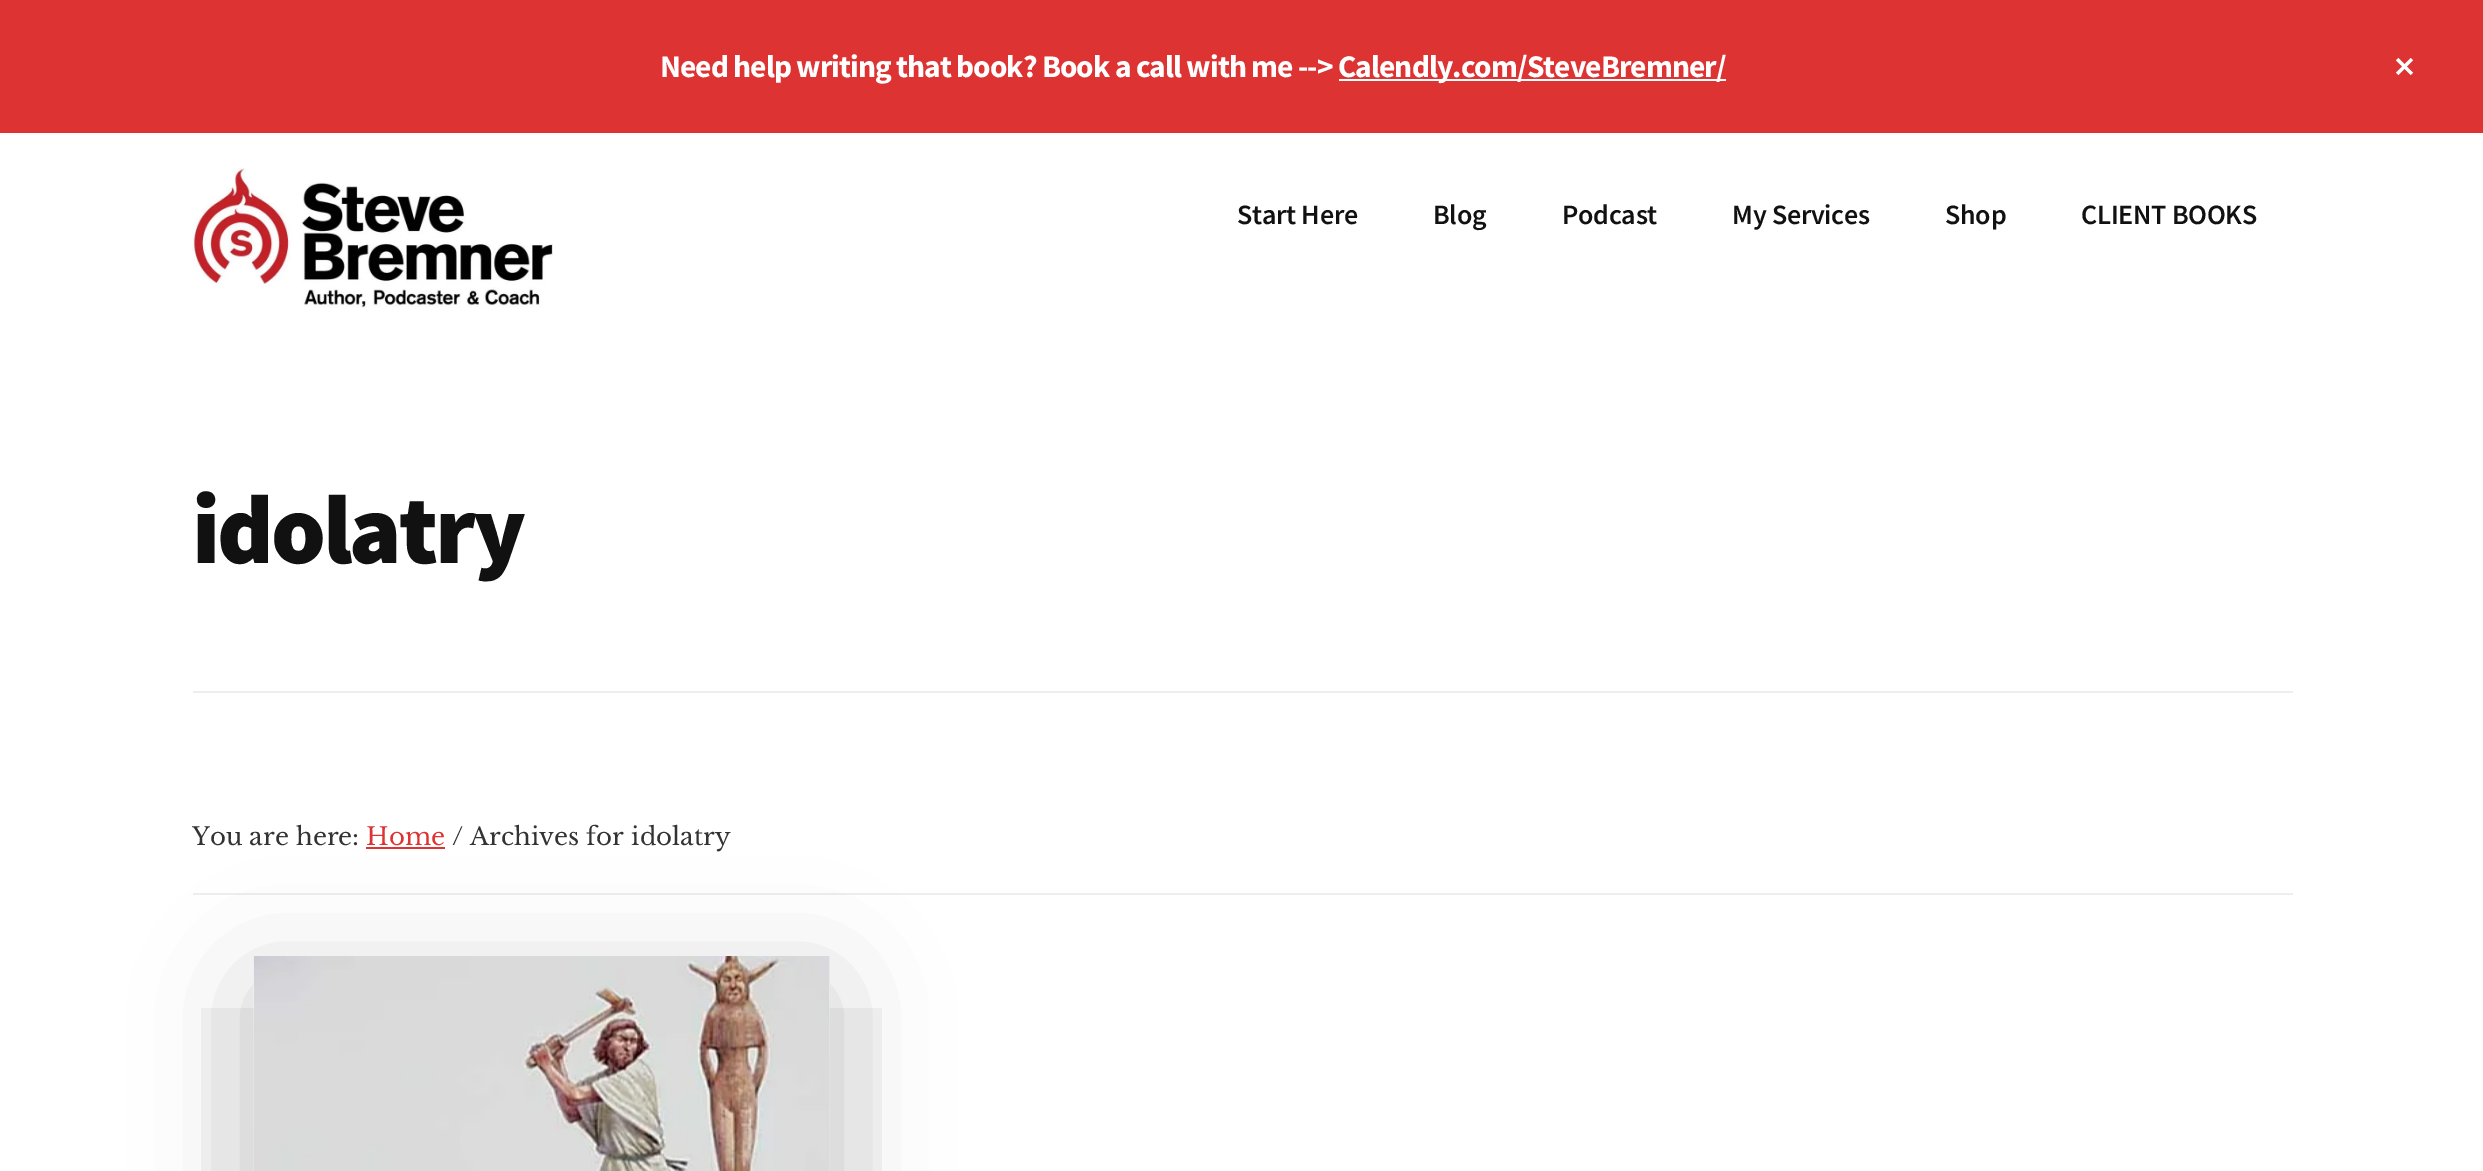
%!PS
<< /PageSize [2483 1171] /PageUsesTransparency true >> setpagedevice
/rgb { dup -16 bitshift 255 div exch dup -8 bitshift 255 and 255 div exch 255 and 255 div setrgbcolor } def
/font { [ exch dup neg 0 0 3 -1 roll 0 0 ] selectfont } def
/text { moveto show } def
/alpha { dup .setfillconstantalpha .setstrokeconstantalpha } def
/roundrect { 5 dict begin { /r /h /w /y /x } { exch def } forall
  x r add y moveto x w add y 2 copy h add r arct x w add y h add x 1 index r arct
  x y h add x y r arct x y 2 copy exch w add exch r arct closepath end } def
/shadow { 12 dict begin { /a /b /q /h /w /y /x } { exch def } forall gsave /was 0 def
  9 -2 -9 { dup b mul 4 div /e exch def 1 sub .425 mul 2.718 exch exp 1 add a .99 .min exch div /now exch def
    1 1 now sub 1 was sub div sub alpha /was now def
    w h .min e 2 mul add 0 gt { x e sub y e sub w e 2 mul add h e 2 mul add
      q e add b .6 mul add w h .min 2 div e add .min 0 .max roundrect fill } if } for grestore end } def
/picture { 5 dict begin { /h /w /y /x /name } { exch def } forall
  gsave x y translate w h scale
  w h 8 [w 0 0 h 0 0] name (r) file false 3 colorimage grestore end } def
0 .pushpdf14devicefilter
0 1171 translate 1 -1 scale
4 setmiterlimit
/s1 { /LibreBaskerville-Regular 24.5 font 16#333333 rgb } def
/s2 { /LibreBaskerville-Regular 24.5 font 16#DD3333 rgb } def
16#FFFFFF rgb
0 0 2483 1171 rectfill
16#DD3333 rgb
0 0 2483 133 rectfill
/SourceSansPro-Bold 31.5 font
16#FFFFFF rgb
660 77 moveto -0.95 0 (Need help writing that book? Book a call with me -->) ashow
1339 79 387 2 rectfill
1338 77 moveto -0.95 0 (Calendly.com/SteveBremner/) ashow
(pic1.raw) 2395 57 19 19 picture
(pic2.raw) 192 168 361 140 picture
/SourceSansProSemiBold-SemiBold 28 font
16#111111 rgb
1237 224 moveto -0.25 0 (Start Here) ashow
1433 224 moveto -0.25 0 (Blog) ashow
1562 224 moveto -0.25 0 (Podcast) ashow
1732 224 moveto -0.25 0 (My Services) ashow
1945 224 moveto -0.25 0 (Shop) ashow
2081 224 moveto -0.25 0 (CLIENT BOOKS) ashow
16#EEEEEE rgb
193 691 2100 2 rectfill
/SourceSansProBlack-Black 98 font
16#111111 rgb
192 563 moveto -3 0 (idolatry) ashow
16#F4F4F4 rgb
201 1008 681 163 rectfill
16#EEEEEE rgb
193 893 2100 2 rectfill
16#DD3333 rgb
366 847 79 2 rectfill
16#000000 rgb
254 984 576 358 0 57 0.18 shadow
(pic3.raw) 253 956 577 215 picture
s1
(You are here:) 192 845 text
s2
(Home) 366 845 text
s1
(/ Archives for idolatry) 452 845 text
.poppdf14devicefilter showpage
